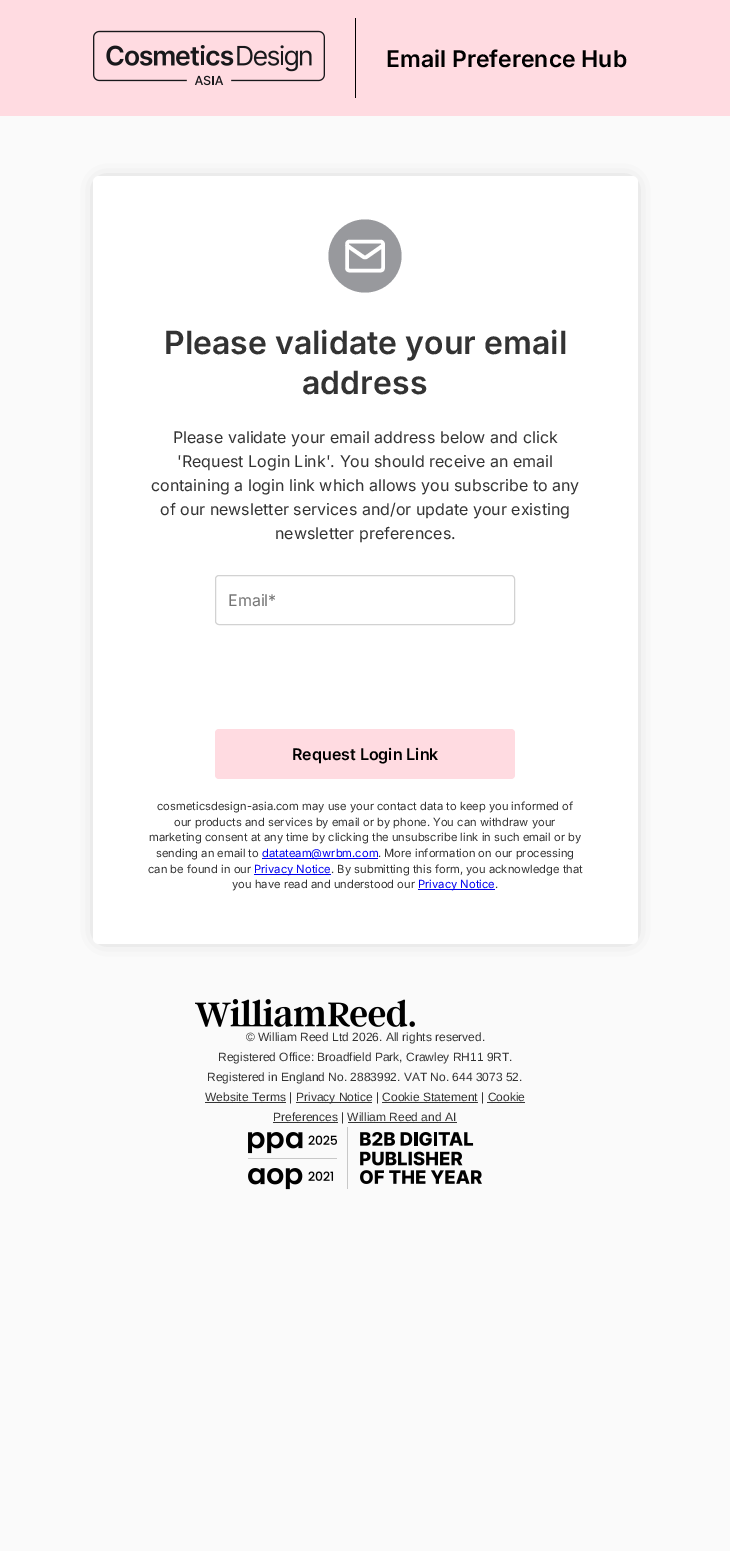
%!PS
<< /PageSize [730 1551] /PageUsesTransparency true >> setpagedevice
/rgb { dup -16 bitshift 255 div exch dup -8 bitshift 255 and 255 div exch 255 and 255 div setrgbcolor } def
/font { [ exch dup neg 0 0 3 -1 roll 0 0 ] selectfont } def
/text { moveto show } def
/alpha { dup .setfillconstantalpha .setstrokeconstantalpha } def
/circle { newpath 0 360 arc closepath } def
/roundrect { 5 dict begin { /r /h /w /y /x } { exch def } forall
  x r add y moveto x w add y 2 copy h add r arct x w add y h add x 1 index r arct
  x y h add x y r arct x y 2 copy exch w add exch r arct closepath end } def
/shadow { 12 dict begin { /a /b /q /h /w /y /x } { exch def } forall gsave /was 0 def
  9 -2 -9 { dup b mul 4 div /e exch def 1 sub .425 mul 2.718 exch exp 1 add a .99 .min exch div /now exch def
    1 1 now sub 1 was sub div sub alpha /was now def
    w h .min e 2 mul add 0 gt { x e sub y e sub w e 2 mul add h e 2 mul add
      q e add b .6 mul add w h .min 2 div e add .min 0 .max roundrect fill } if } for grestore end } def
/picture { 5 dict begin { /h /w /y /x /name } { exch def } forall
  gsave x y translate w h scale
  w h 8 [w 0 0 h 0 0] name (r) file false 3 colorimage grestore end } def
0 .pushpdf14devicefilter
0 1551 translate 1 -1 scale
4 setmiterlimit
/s1 { /Inter-SemiBold 23 font 16#000000 rgb } def
/s2 { /Inter-SemiBold 32 font 16#333333 rgb } def
/s3 { /Inter-Regular 16 font 16#333333 rgb } def
/s4 { /Inter-Regular 16 font 16#747474 rgb } def
/s5 { /Inter-SemiBold 16 font 16#000000 rgb } def
/s6 { /Inter-Regular 11.2 font 16#333333 rgb } def
/s7 { /Inter-Regular 11.2 font 16#0000EE rgb } def
/s8 { /LiberationSans-Regular 12 font 16#333333 rgb } def
16#FAFAFA rgb
0 0 730 1551 rectfill
16#FFDBE1 rgb
0 0 730 116 rectfill
(pic1.raw) 93 30 232 56 picture
16#000000 rgb
355 18 1 80 rectfill
s1
(Email Preference Hub) 386 67 text
102 185 527 750 0 9.5 0.36 shadow
16#FFFFFF rgb
93 176 545 768 6 roundrect fill
16#98999D rgb
365 256 36.5 circle fill
16#FFFFFF rgb
3.6 setlinewidth
1 setlinecap
1 setlinejoin
380.5 270.5 moveto 349.5 270.5 lineto 348 270.5 347 269.5 347 268 curveto 347 244 lineto 347 243 348 241.5 349.5 241.5 curveto 380.5 241.5 lineto 382 241.5 383 243 383 244 curveto 383 268 lineto 383 269.5 382 270.5 380.5 270.5 curveto closepath 383 245.5 moveto 366.5 257 lineto 365.5 257.5 364.5 257.5 363.5 257 curveto 347 245.5 lineto stroke
s2
(Please validate your email) 164 354 text
(address) 302 394 text
s3
(Please validate your email address below and click) 173 443 text
('Request Login Link'. You should receive an email) 177 467 text
(containing a login link which allows you subscribe to any) 151 491 text
(of our newsletter services and/or update your existing) 160 515 text
(newsletter preferences.) 275 539 text
16#D2D2D2 rgb
1 setlinewidth
0 setlinecap
0 setlinejoin
215.5 575.5 299 49 3.5 roundrect stroke
s4
(Email*) 228 606 text
16#FFDBE1 rgb
215 729 300 50 4 roundrect fill
s5
(Request Login Link) 292 760 text
s6
(cosmeticsdesign-asia.com may use your contact data to keep you informed of) 157 810 text
(our products and services by email or by phone. You can withdraw your) 174 826 text
(marketing consent at any time by clicking the unsubscribe link in such email or by) 149 841 text
(sending an email to) 156 857 text
16#0000EE rgb
262 858 116 1 rectfill
(datateam@wrbm.com) 262 857 text
s6
(. More information on our processing) 378 857 text
(can be found in our) 148 873 text
16#0000EE rgb
254 874 77 1 rectfill
(Privacy Notice) 254 873 text
s6
(. By submitting this form, you acknowledge that) 331 873 text
(you have read and understood our) 232 888 text
16#0000EE rgb
418 889 77 1 rectfill
(Privacy Notice) 418 888 text
s6
(.) 495 888 text
(pic2.raw) 195 999 220 28 picture
s8
(© William Reed Ltd 2026. All rights reserved.) 246 1041 text
(Registered Office: Broadfield Park, Crawley RH11 9RT.) 218 1061 text
(Registered in England No. 2883992. VAT No. 644 3073 52.) 207 1081 text
16#343434 rgb
205 1102 81 1 rectfill
s8
(Website Terms |) 205 1101 text
16#343434 rgb
296 1102 76 1 rectfill
s8
(Privacy Notice | Cookie Statement | Cookie) 296 1101 text
16#343434 rgb
382 1102 96 1 rectfill
273 1122 65 1 rectfill
s8
(Preferences | William Reed and AI) 273 1121 text
16#343434 rgb
487 1102 38 1 rectfill
348 1122 109 1 rectfill
(pic3.raw) 248 1127 234 63 picture
.poppdf14devicefilter showpage
